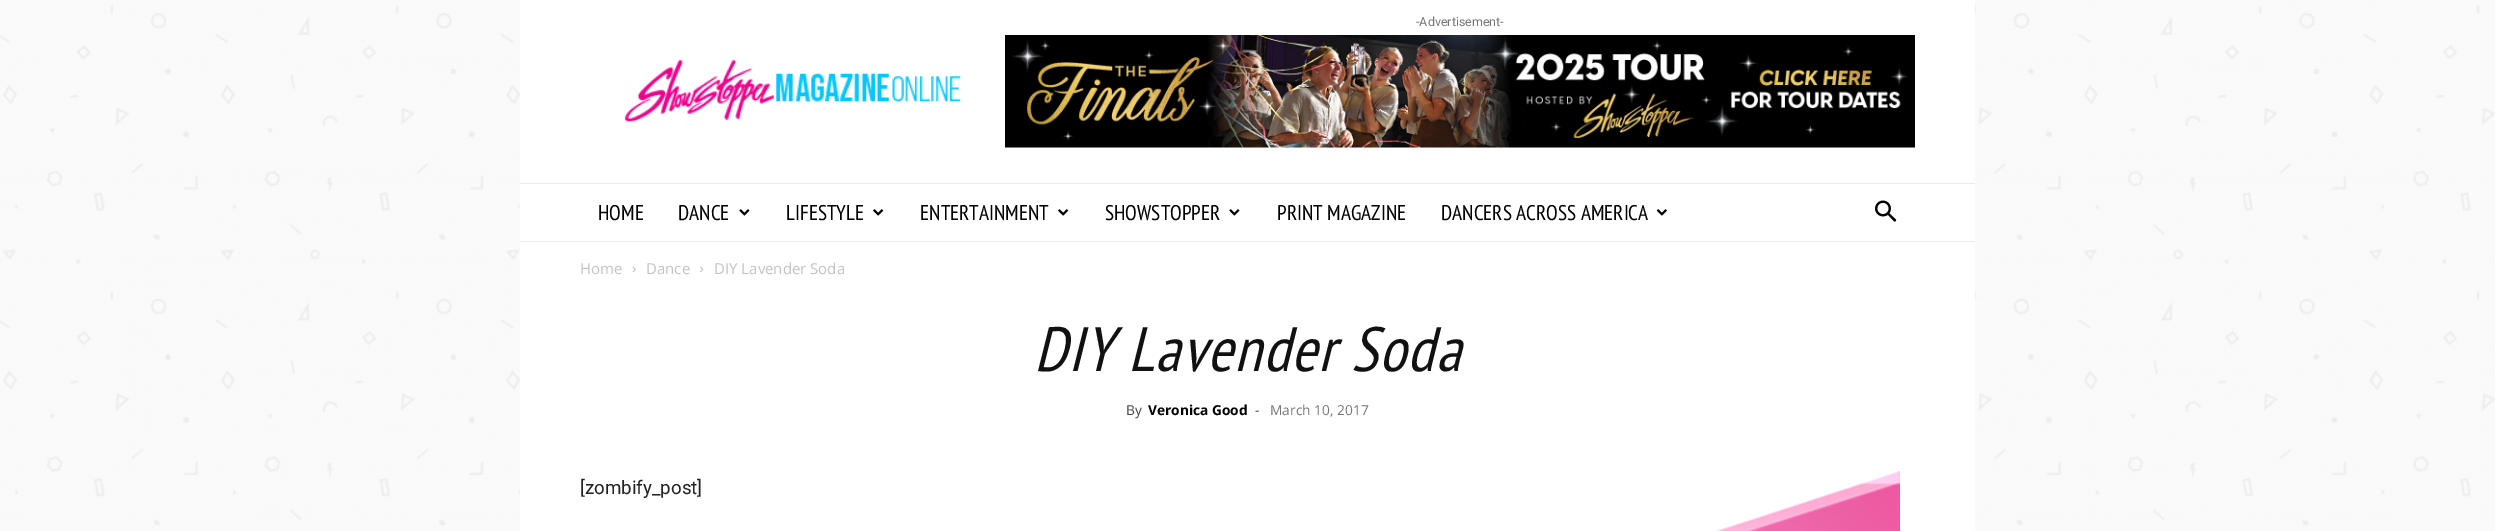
%!PS
<< /PageSize [2495 531] >> setpagedevice
/rgb { dup -16 bitshift 255 div exch dup -8 bitshift 255 and 255 div exch 255 and 255 div setrgbcolor } def
/font { [ exch dup neg 0 0 3 -1 roll 0 0 ] selectfont } def
/text { moveto show } def
/picture { 5 dict begin { /h /w /y /x /name } { exch def } forall
  gsave x y translate w h scale
  w h 8 [w 0 0 h 0 0] name (r) file false 3 colorimage grestore end } def
0 531 translate 1 -1 scale
4 setmiterlimit
/s1 { /Roboto-Regular 12.5 font 16#767676 rgb } def
/s2 { /PTSansNarrow-Regular 21.25 font 16#000000 rgb } def
/s3 { /OpenSans-Regular 15 font 16#C3C3C3 rgb } def
/s4 { /OpenSans-Regular 13.75 font 16#444444 rgb } def
/s5 { /OpenSans-Bold 13.75 font 16#000000 rgb } def
/s6 { /OpenSans-Regular 13.75 font 16#767676 rgb } def
/s7 { /Roboto-Regular 18.75 font 16#222222 rgb } def
16#FFFFFF rgb
0 0 2495 531 rectfill
(pic1.raw) 0 0 2495 531 picture
520 0 1455 183 rectfill
s1
(-Advertisement-) 1416 26 text
(pic2.raw) 1005 35 910 113 picture
(pic3.raw) 624 59 338 63 picture
16#EBEBEB rgb
520 183 1455 1 rectfill
16#FFFFFF rgb
520 184 1455 347 rectfill
s2
(HOME) 598 220 text
(DANCE) 678 220 text
(pic4.raw) 739 209 11 7 picture
(LIFESTYLE) 786 220 text
(pic5.raw) 873 209 11 7 picture
(ENTERTAINMENT) 920 220 text
(pic5.raw) 1058 209 11 7 picture
(SHOWSTOPPER) 1105 220 text
(pic4.raw) 1229 209 11 7 picture
(PRINT MAGAZINE) 1277 220 text
(DANCERS ACROSS AMERICA) 1441 220 text
(pic6.raw) 1656 209 11 7 picture
(pic7.raw) 1875 200 22 22 picture
16#EBEBEB rgb
520 241 1455 1 rectfill
s3
(Home) 580 274 text
(pic8.raw) 632 266 4 7 picture
(Dance) 646 274 text
(pic9.raw) 700 266 4 7 picture
(DIY Lavender Soda) 714 274 text
/PTSansNarrow-Italic 62.5 font
16#111111 rgb
1034 371 moveto 1.25 0 (DIY Lavender Soda) ashow
s4
(By) 1126 415 text
s5
(Veronica Good) 1148 415 text
s4
(-) 1255 415 text
s6
(March 10, 2017) 1270 415 text
s7
([zombify_post]) 580 494 text
(pic10.raw) 1716 471 184 60 picture
showpage
